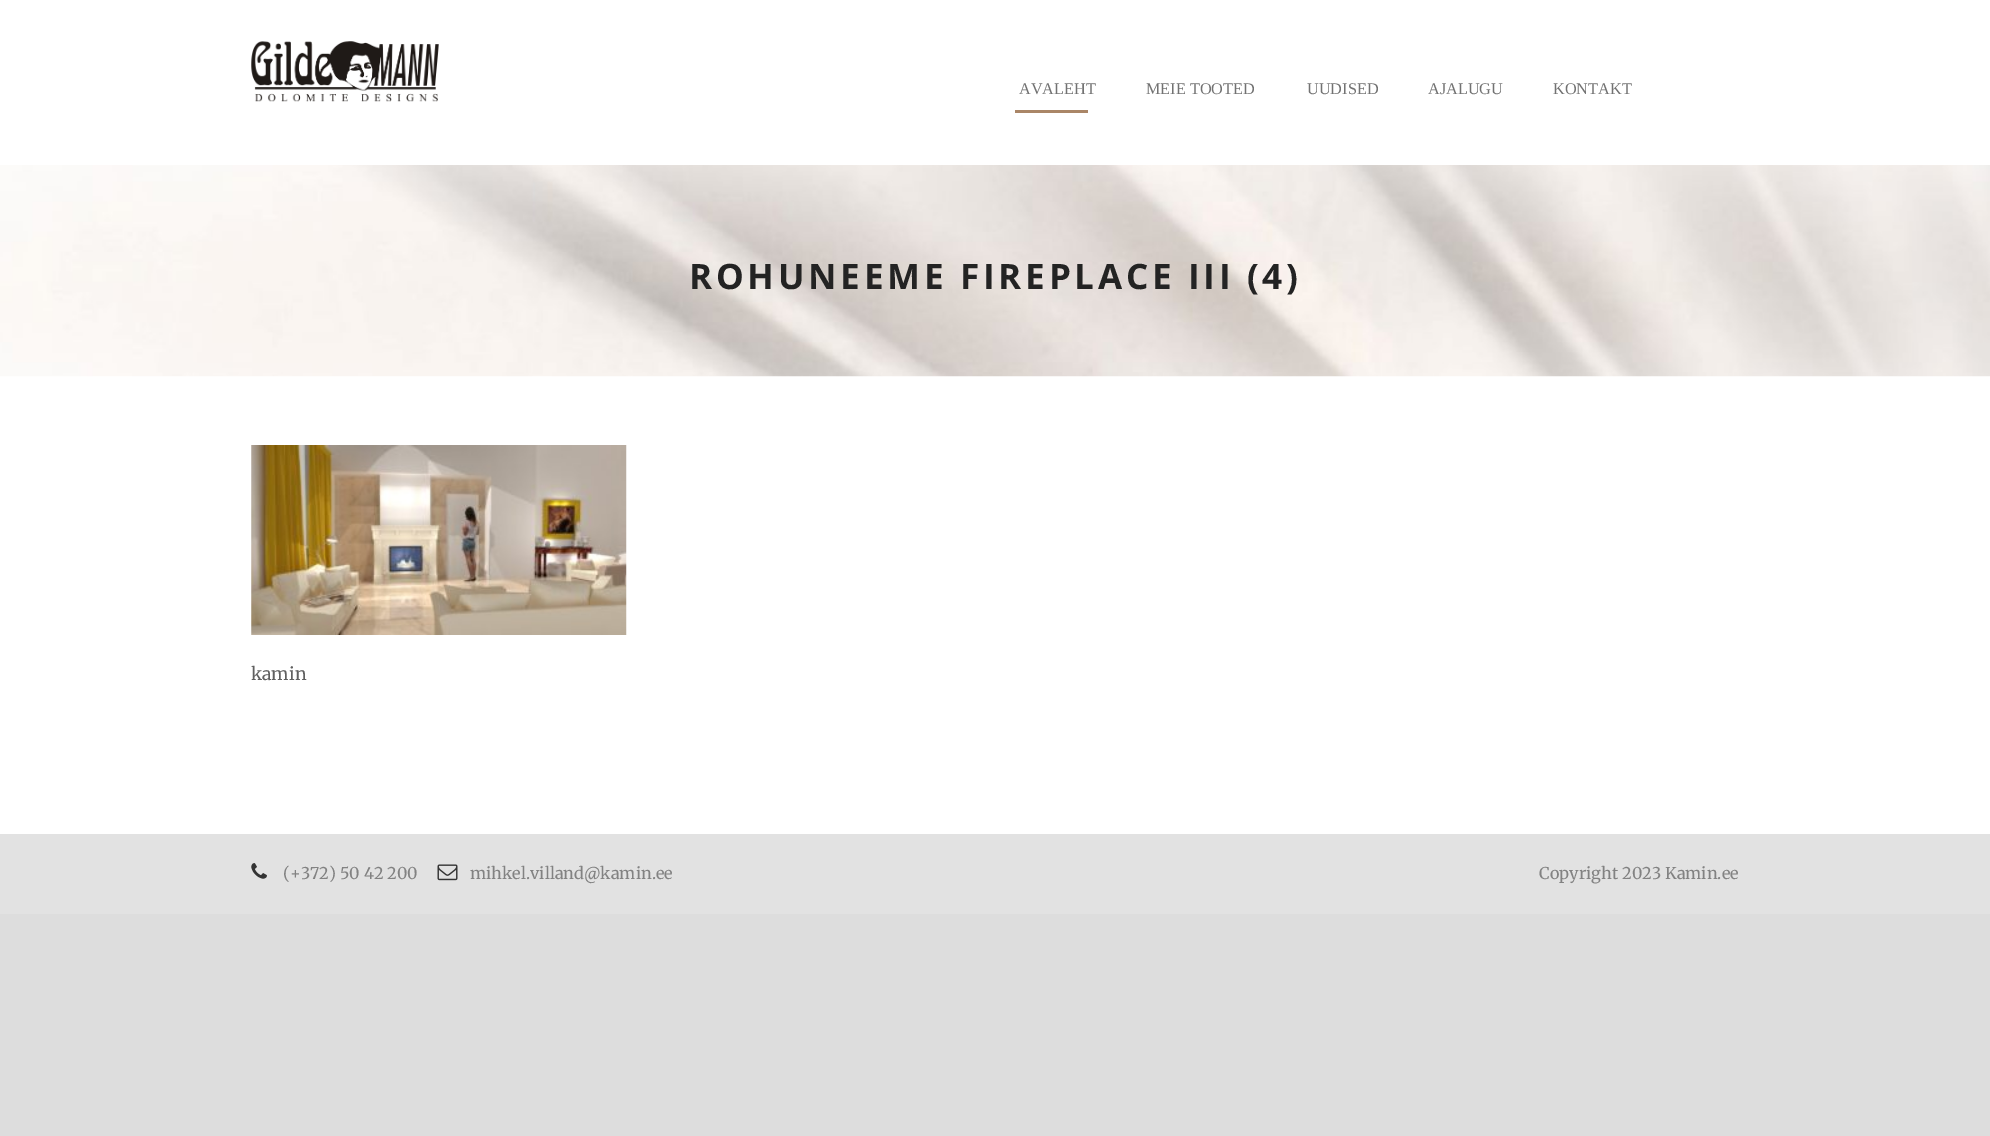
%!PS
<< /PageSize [1990 1136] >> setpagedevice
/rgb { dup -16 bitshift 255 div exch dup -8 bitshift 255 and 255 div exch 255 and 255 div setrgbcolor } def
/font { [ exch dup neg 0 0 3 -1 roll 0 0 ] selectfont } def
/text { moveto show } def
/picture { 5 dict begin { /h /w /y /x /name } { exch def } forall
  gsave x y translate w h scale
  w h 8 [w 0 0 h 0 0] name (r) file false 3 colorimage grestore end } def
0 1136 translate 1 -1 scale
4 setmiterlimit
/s1 { /LiberationSerif-Regular 16.25 font 16#727272 rgb } def
/s2 { /Merriweather-Regular 17.5 font 16#606060 rgb } def
/s3 { /Merriweather-Regular 16.25 font 16#828282 rgb } def
16#DDDDDD rgb
0 0 1990 1136 rectfill
16#FFFFFF rgb
0 0 1990 834 rectfill
(pic1.raw) 251 41 188 61 picture
s1
(AVALEHT) 1019 94 text
(MEIE TOOTED) 1146 94 text
(UUDISED) 1307 94 text
(AJALUGU) 1428 94 text
(KONTAKT) 1553 94 text
16#AA8667 rgb
1015 110 73 3 rectfill
(pic2.raw) 0 165 1990 212 picture
/OpenSans-Bold 35 font
16#232323 rgb
689 289 moveto 3.75 0 (ROHUNEEME FIREPLACE III \(4\)) ashow
(pic3.raw) 251 445 376 190 picture
s2
(kamin) 251 680 text
16#E2E2E2 rgb
0 834 1990 80 rectfill
(pic4.raw) 251 863 16 16 picture
s3
(\(+372\) 50 42 200) 283 879 text
(pic5.raw) 437 864 21 17 picture
(mihkel.villand@kamin.ee) 470 879 text
(Copyright 2023 Kamin.ee) 1539 879 text
showpage
